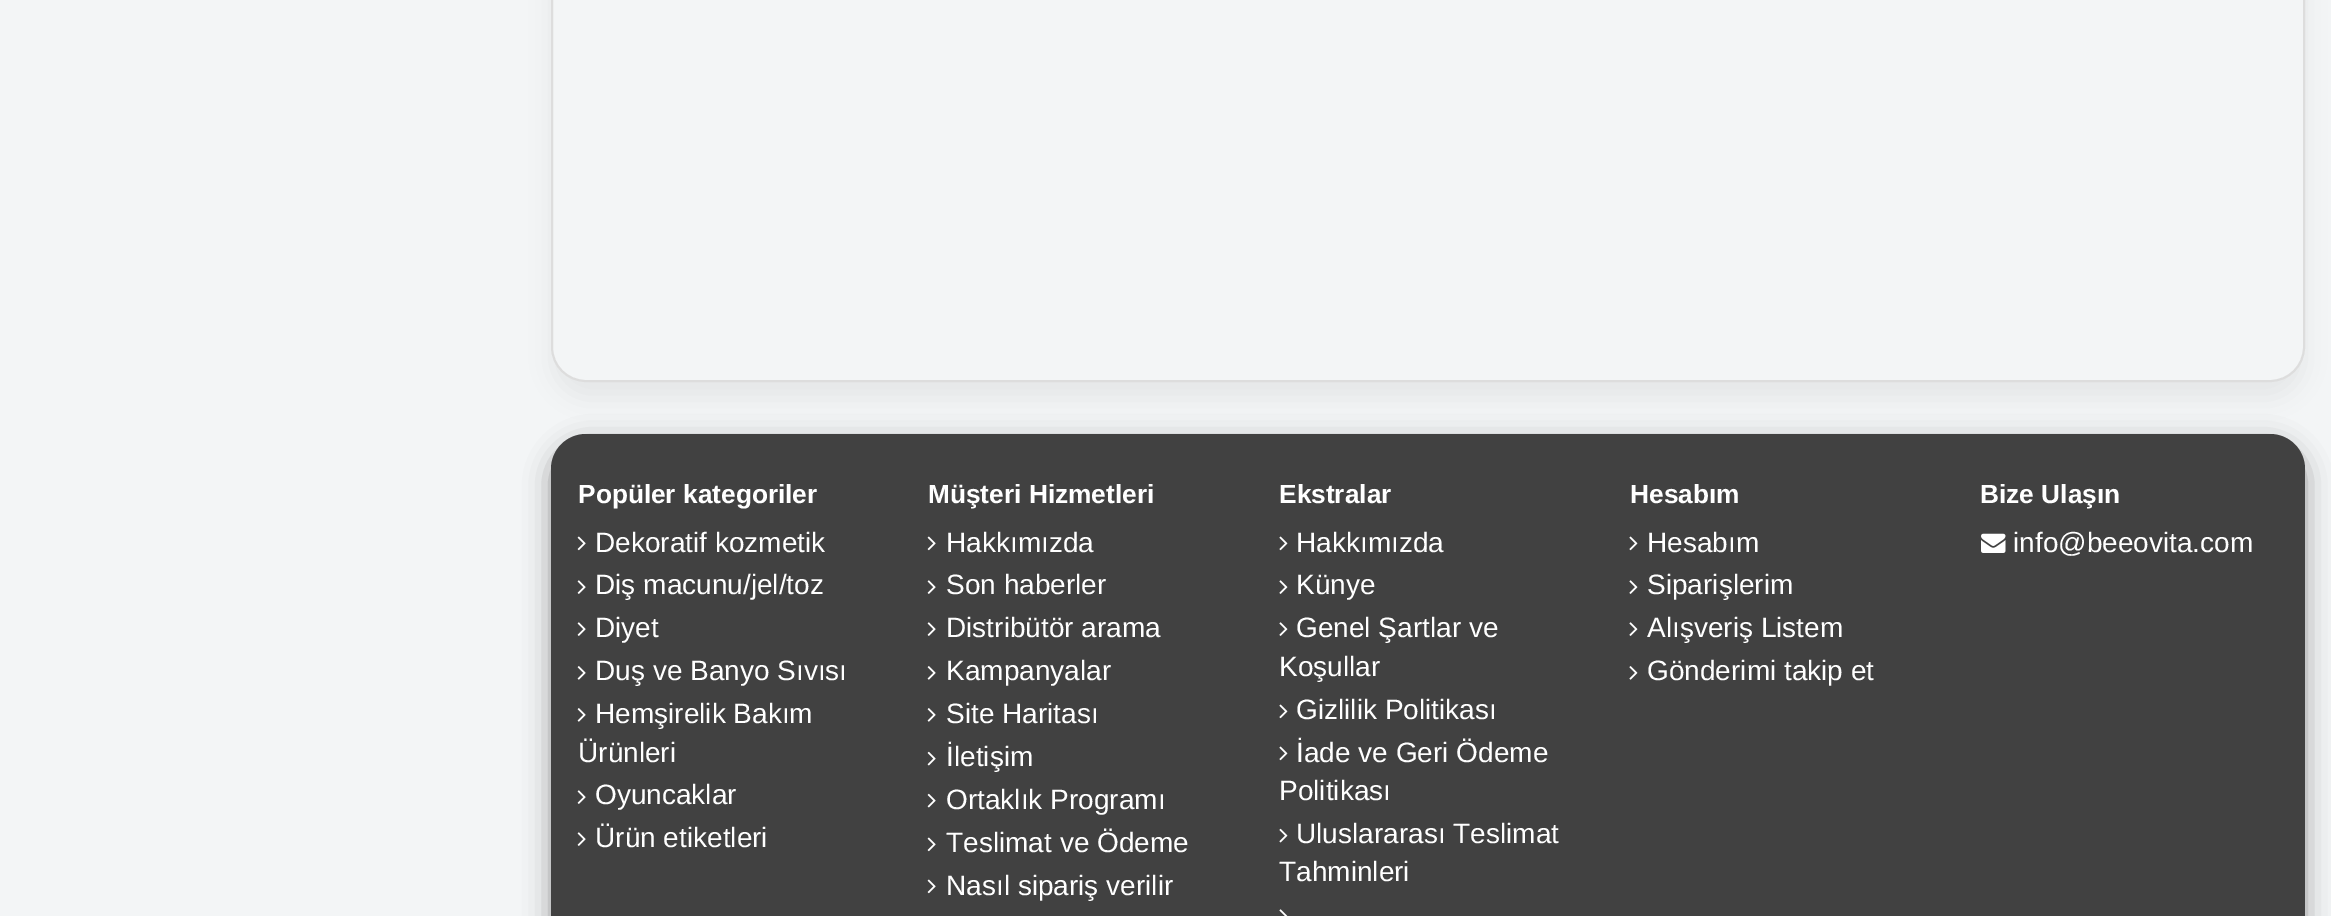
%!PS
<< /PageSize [2331 916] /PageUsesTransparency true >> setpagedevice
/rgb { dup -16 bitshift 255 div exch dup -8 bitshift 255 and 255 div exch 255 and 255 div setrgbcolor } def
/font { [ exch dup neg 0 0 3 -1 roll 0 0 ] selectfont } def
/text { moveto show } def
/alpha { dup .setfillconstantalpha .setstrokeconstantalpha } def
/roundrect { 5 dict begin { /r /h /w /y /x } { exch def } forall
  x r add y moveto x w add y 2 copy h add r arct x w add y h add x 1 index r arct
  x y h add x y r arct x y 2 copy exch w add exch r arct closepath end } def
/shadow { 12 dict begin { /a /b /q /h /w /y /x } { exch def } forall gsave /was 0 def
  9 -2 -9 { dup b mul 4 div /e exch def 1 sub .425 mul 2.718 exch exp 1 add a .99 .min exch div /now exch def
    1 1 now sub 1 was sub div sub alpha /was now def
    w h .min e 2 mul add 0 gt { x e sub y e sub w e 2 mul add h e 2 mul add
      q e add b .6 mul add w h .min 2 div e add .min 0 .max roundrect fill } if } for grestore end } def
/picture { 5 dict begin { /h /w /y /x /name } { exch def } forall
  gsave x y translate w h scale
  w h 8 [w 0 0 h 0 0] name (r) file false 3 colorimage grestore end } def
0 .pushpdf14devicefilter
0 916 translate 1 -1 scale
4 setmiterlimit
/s1 { /LiberationSans-Bold 26.25 font 16#FFFFFF rgb } def
/s2 { /LiberationSans-Regular 28 font 16#FFFFFF rgb } def
16#F3F5F6 rgb
0 0 2331 916 rectfill
16#000000 rgb
551 443 1754 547 35 13 0.38 shadow
16#414141 rgb
551 434 1754 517 35 roundrect fill
gsave
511 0 moveto 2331 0 lineto 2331 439 lineto 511 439 lineto closepath 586 -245 moveto 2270 -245 lineto 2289.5 -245 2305 -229.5 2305 -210 curveto 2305 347 lineto 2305 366.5 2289.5 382 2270 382 curveto 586 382 lineto 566.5 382 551 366.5 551 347 curveto 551 -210 lineto 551 -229.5 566.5 -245 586 -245 curveto closepath eoclip newpath
16#000000 rgb
551 -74 1754 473 35 13 0.05 shadow
grestore
16#DDDDDD rgb
2 setlinewidth
552 -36 1752 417 34 roundrect stroke
s1
(Popüler kategoriler) 578 503 text
(pic1.raw) 577 536 9 15 picture
s2
(Dekoratif kozmetik) 595 552 text
(pic2.raw) 577 580 9 14 picture
(Diş macunu/jel/toz) 595 594 text
(pic2.raw) 577 622 9 14 picture
(Diyet) 595 637 text
(pic3.raw) 577 666 9 14 picture
(Duş ve Banyo Sıvısı) 595 680 text
(pic3.raw) 577 708 9 14 picture
(Hemşirelik Bakım) 595 723 text
(Ürünleri) 578 762 text
(pic2.raw) 577 790 9 14 picture
(Oyuncaklar) 595 804 text
(pic2.raw) 577 832 9 14 picture
(Ürün etiketleri) 595 847 text
s1
(Müşteri Hizmetleri) 928 503 text
(pic1.raw) 927 536 9 15 picture
s2
(Hakkımızda) 946 552 text
(pic2.raw) 927 580 9 14 picture
(Son haberler) 946 594 text
(pic2.raw) 927 622 9 14 picture
(Distribütör arama) 946 637 text
(pic3.raw) 927 666 9 14 picture
(Kampanyalar) 946 680 text
(pic3.raw) 927 708 9 14 picture
(Site Haritası) 946 723 text
(pic4.raw) 927 751 9 15 picture
(İletişim) 946 766 text
(pic4.raw) 927 793 9 15 picture
(Ortaklık Programı) 946 809 text
(pic1.raw) 927 837 9 15 picture
(Teslimat ve Ödeme) 946 852 text
(pic1.raw) 927 879 9 15 picture
(Nasıl sipariş verilir) 946 895 text
s1
(Ekstralar) 1279 503 text
(pic5.raw) 1279 536 9 15 picture
s2
(Hakkımızda) 1296 552 text
(pic6.raw) 1279 580 9 14 picture
(Künye) 1296 594 text
(pic6.raw) 1279 622 9 14 picture
(Genel Şartlar ve) 1296 637 text
(Koşullar) 1279 676 text
(pic5.raw) 1279 704 9 15 picture
(Gizlilik Politikası) 1296 719 text
(pic5.raw) 1279 746 9 15 picture
(İade ve Geri Ödeme) 1296 762 text
(Politikası) 1279 800 text
(pic7.raw) 1279 828 9 15 picture
(Uluslararası Teslimat) 1296 843 text
(Tahminleri) 1279 881 text
(pic8.raw) 1279 909 9 7 picture
s1
(Hesabım) 1630 503 text
(pic5.raw) 1629 536 9 15 picture
s2
(Hesabım) 1647 552 text
(pic6.raw) 1629 580 9 14 picture
(Siparişlerim) 1647 594 text
(pic6.raw) 1629 622 9 14 picture
(Alışveriş Listem) 1647 637 text
(pic9.raw) 1629 666 9 14 picture
(Gönderimi takip et) 1647 680 text
s1
(Bize Ulaşın) 1980 503 text
(pic10.raw) 1981 533 25 20 picture
s2
(info@beeovita.com) 2013 552 text
.poppdf14devicefilter showpage
